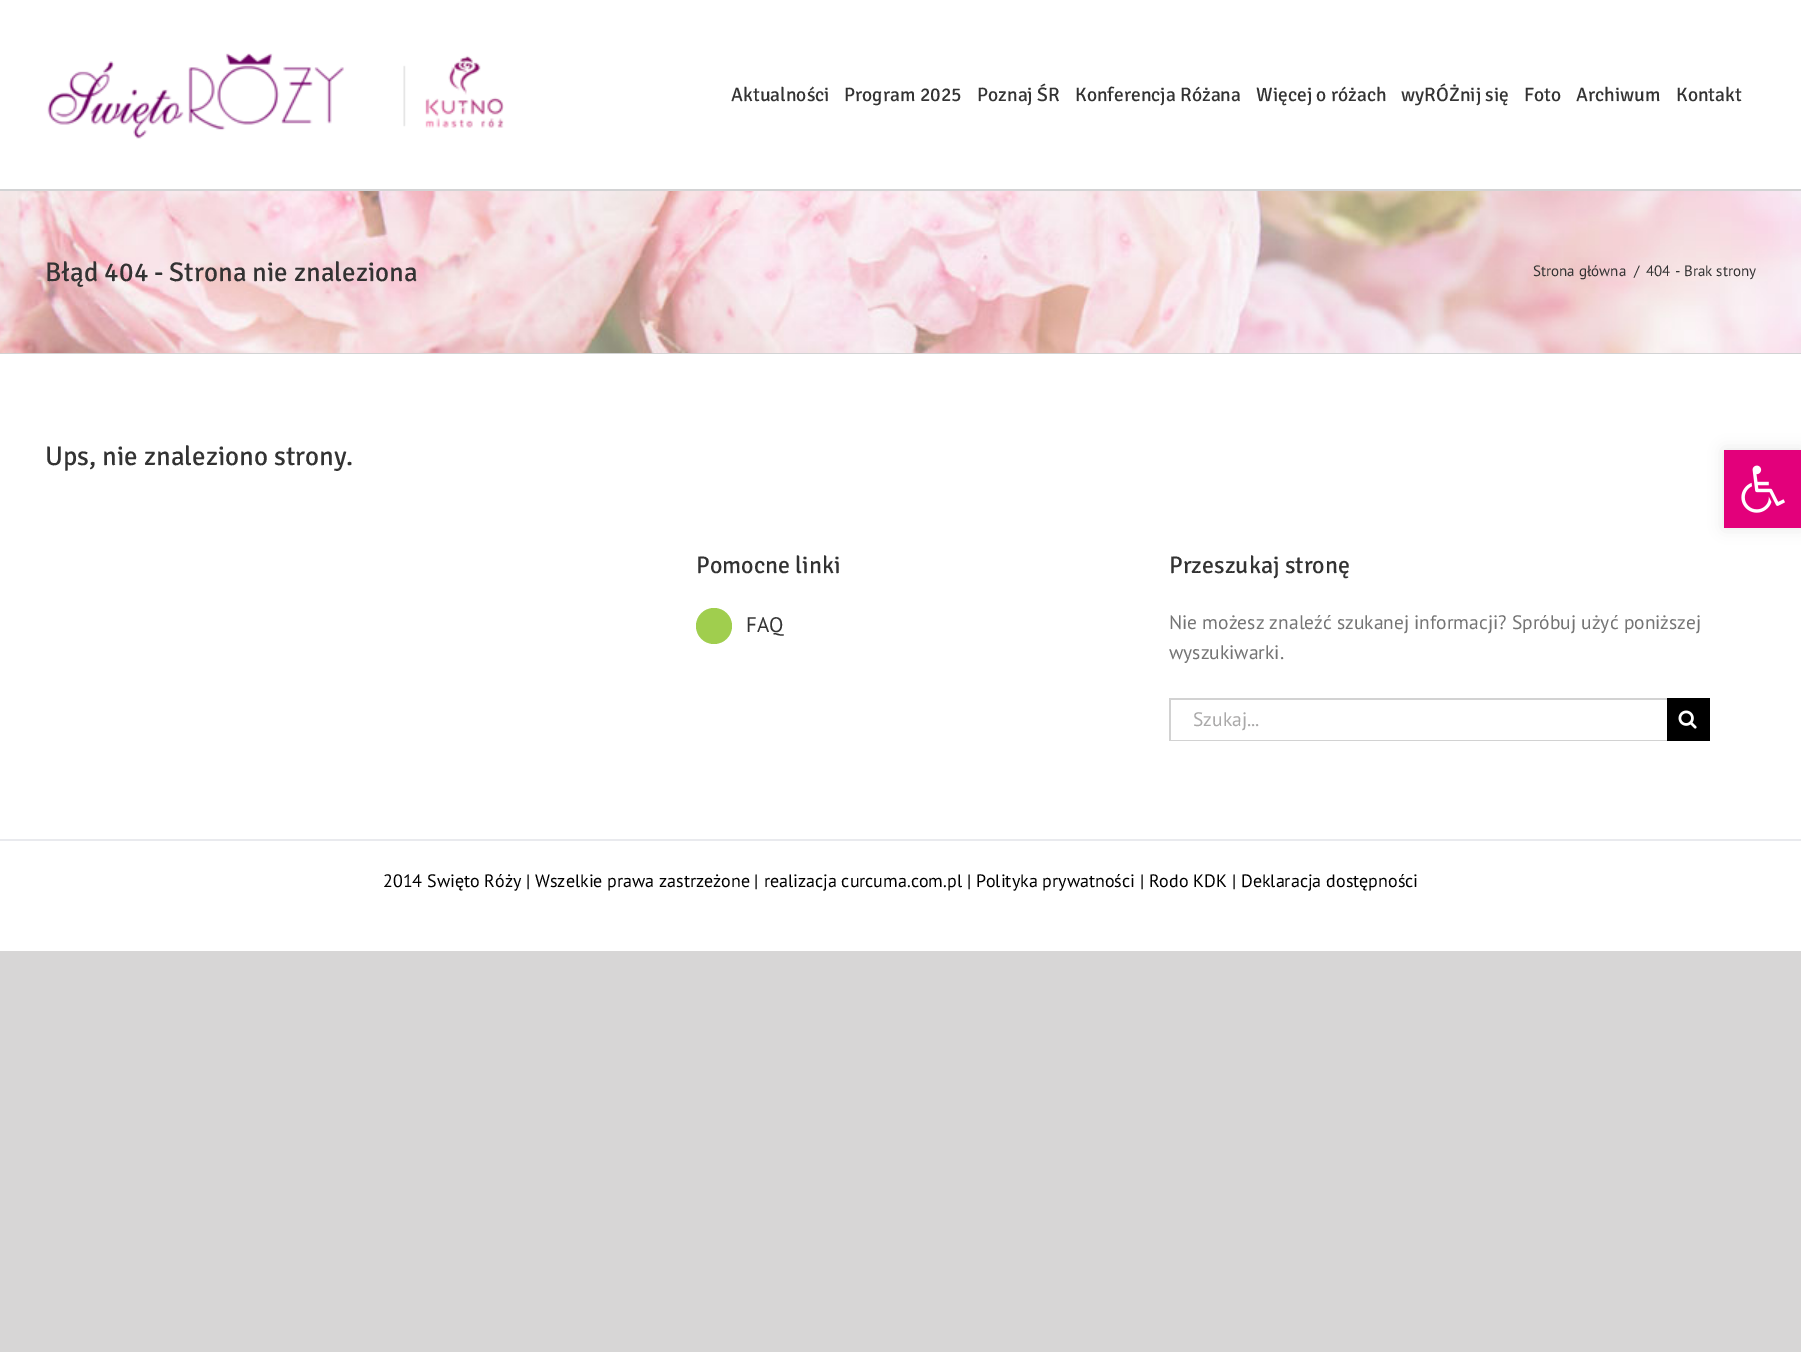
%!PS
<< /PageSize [1801 1352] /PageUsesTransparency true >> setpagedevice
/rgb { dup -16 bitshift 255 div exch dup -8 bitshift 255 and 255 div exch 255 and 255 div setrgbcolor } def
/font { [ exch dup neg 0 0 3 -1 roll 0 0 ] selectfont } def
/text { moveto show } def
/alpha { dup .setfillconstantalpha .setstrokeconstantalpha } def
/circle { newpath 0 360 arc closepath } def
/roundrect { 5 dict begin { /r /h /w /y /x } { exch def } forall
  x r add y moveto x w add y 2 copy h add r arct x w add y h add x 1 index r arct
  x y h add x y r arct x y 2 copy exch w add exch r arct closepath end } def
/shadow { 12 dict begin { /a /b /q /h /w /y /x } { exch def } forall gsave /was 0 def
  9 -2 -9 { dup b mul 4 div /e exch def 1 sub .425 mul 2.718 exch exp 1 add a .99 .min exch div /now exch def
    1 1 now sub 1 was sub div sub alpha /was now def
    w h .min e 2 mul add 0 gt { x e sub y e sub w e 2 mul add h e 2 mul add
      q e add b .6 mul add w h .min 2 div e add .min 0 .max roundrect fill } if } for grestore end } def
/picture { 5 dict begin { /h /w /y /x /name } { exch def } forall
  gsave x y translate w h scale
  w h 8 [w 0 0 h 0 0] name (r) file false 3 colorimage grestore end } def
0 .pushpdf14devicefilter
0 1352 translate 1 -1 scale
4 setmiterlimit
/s1 { /Signika-Light 19.5 font 16#333333 rgb } def
/s2 { /Signika-Light 27 font 16#333333 rgb } def
/s3 { /PTSans-Regular 15 font 16#333333 rgb } def
/s4 { /Signika-Light 24 font 16#333333 rgb } def
/s5 { /PTSans-Regular 21 font 16#333333 rgb } def
/s6 { /PTSans-Regular 19.5 font 16#747474 rgb } def
/s7 { /PTSans-Regular 19.5 font 16#AAA9A9 rgb } def
/s8 { /PTSans-Regular 18 font 16#000000 rgb } def
16#D7D6D6 rgb
0 0 1801 1352 rectfill
16#FFFFFF rgb
0 0 1801 951 rectfill
(pic1.raw) 47 53 457 86 picture
s1
(Aktualności) 731 101 text
(Program 2025) 844 101 text
(Poznaj ŚR) 977 101 text
(Konferencja Różana) 1075 101 text
(Więcej o różach) 1256 101 text
(wyRÓŻnij się) 1401 101 text
(Foto) 1524 101 text
(Archiwum) 1576 101 text
(Kontakt) 1676 101 text
(pic2.raw) 0 191 1801 162 picture
16#D2D3D4 rgb
0 189 1801 2 rectfill
0 353 1801 1 rectfill
s2
(Błąd 404 - Strona nie znaleziona) 45 281 text
s3
(Strona główna) 1533 276 text
(/) 1634 276 text
(404 - Brak strony) 1646 276 text
s2
(Ups, nie znaleziono strony.) 45 465 text
s4
(Pomocne linki) 696 573 text
16#A0CE4E rgb
714 626 18 circle fill
s5
(FAQ) 746 632 text
s4
(Przeszukaj stronę) 1169 573 text
s6
(Nie możesz znaleźć szukanej informacji? Spróbuj użyć poniższej) 1169 629 text
(wyszukiwarki.) 1169 659 text
16#D2D2D2 rgb
1169 698 498 2 rectfill
1169 740 498 1 rectfill
1169 698 2 43 rectfill
s7
(Szukaj...) 1193 726 text
16#000000 rgb
1667 698 43 43 rectfill
(pic3.raw) 1678 710 19 19 picture
16#E9EAEE rgb
0 839 1801 2 rectfill
s8
(2014 Swięto Róży | Wszelkie prawa zastrzeżone | realizacja curcuma.com.pl | Polityka prywatności | Rodo KDK | Deklaracja dostępności) 383 887 text
1724 450 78 78 0 7.5 0.1 shadow
16#E3007B rgb
1724 450 77 78 rectfill
(pic4.raw) 1741 465 44 48 picture
.poppdf14devicefilter showpage
